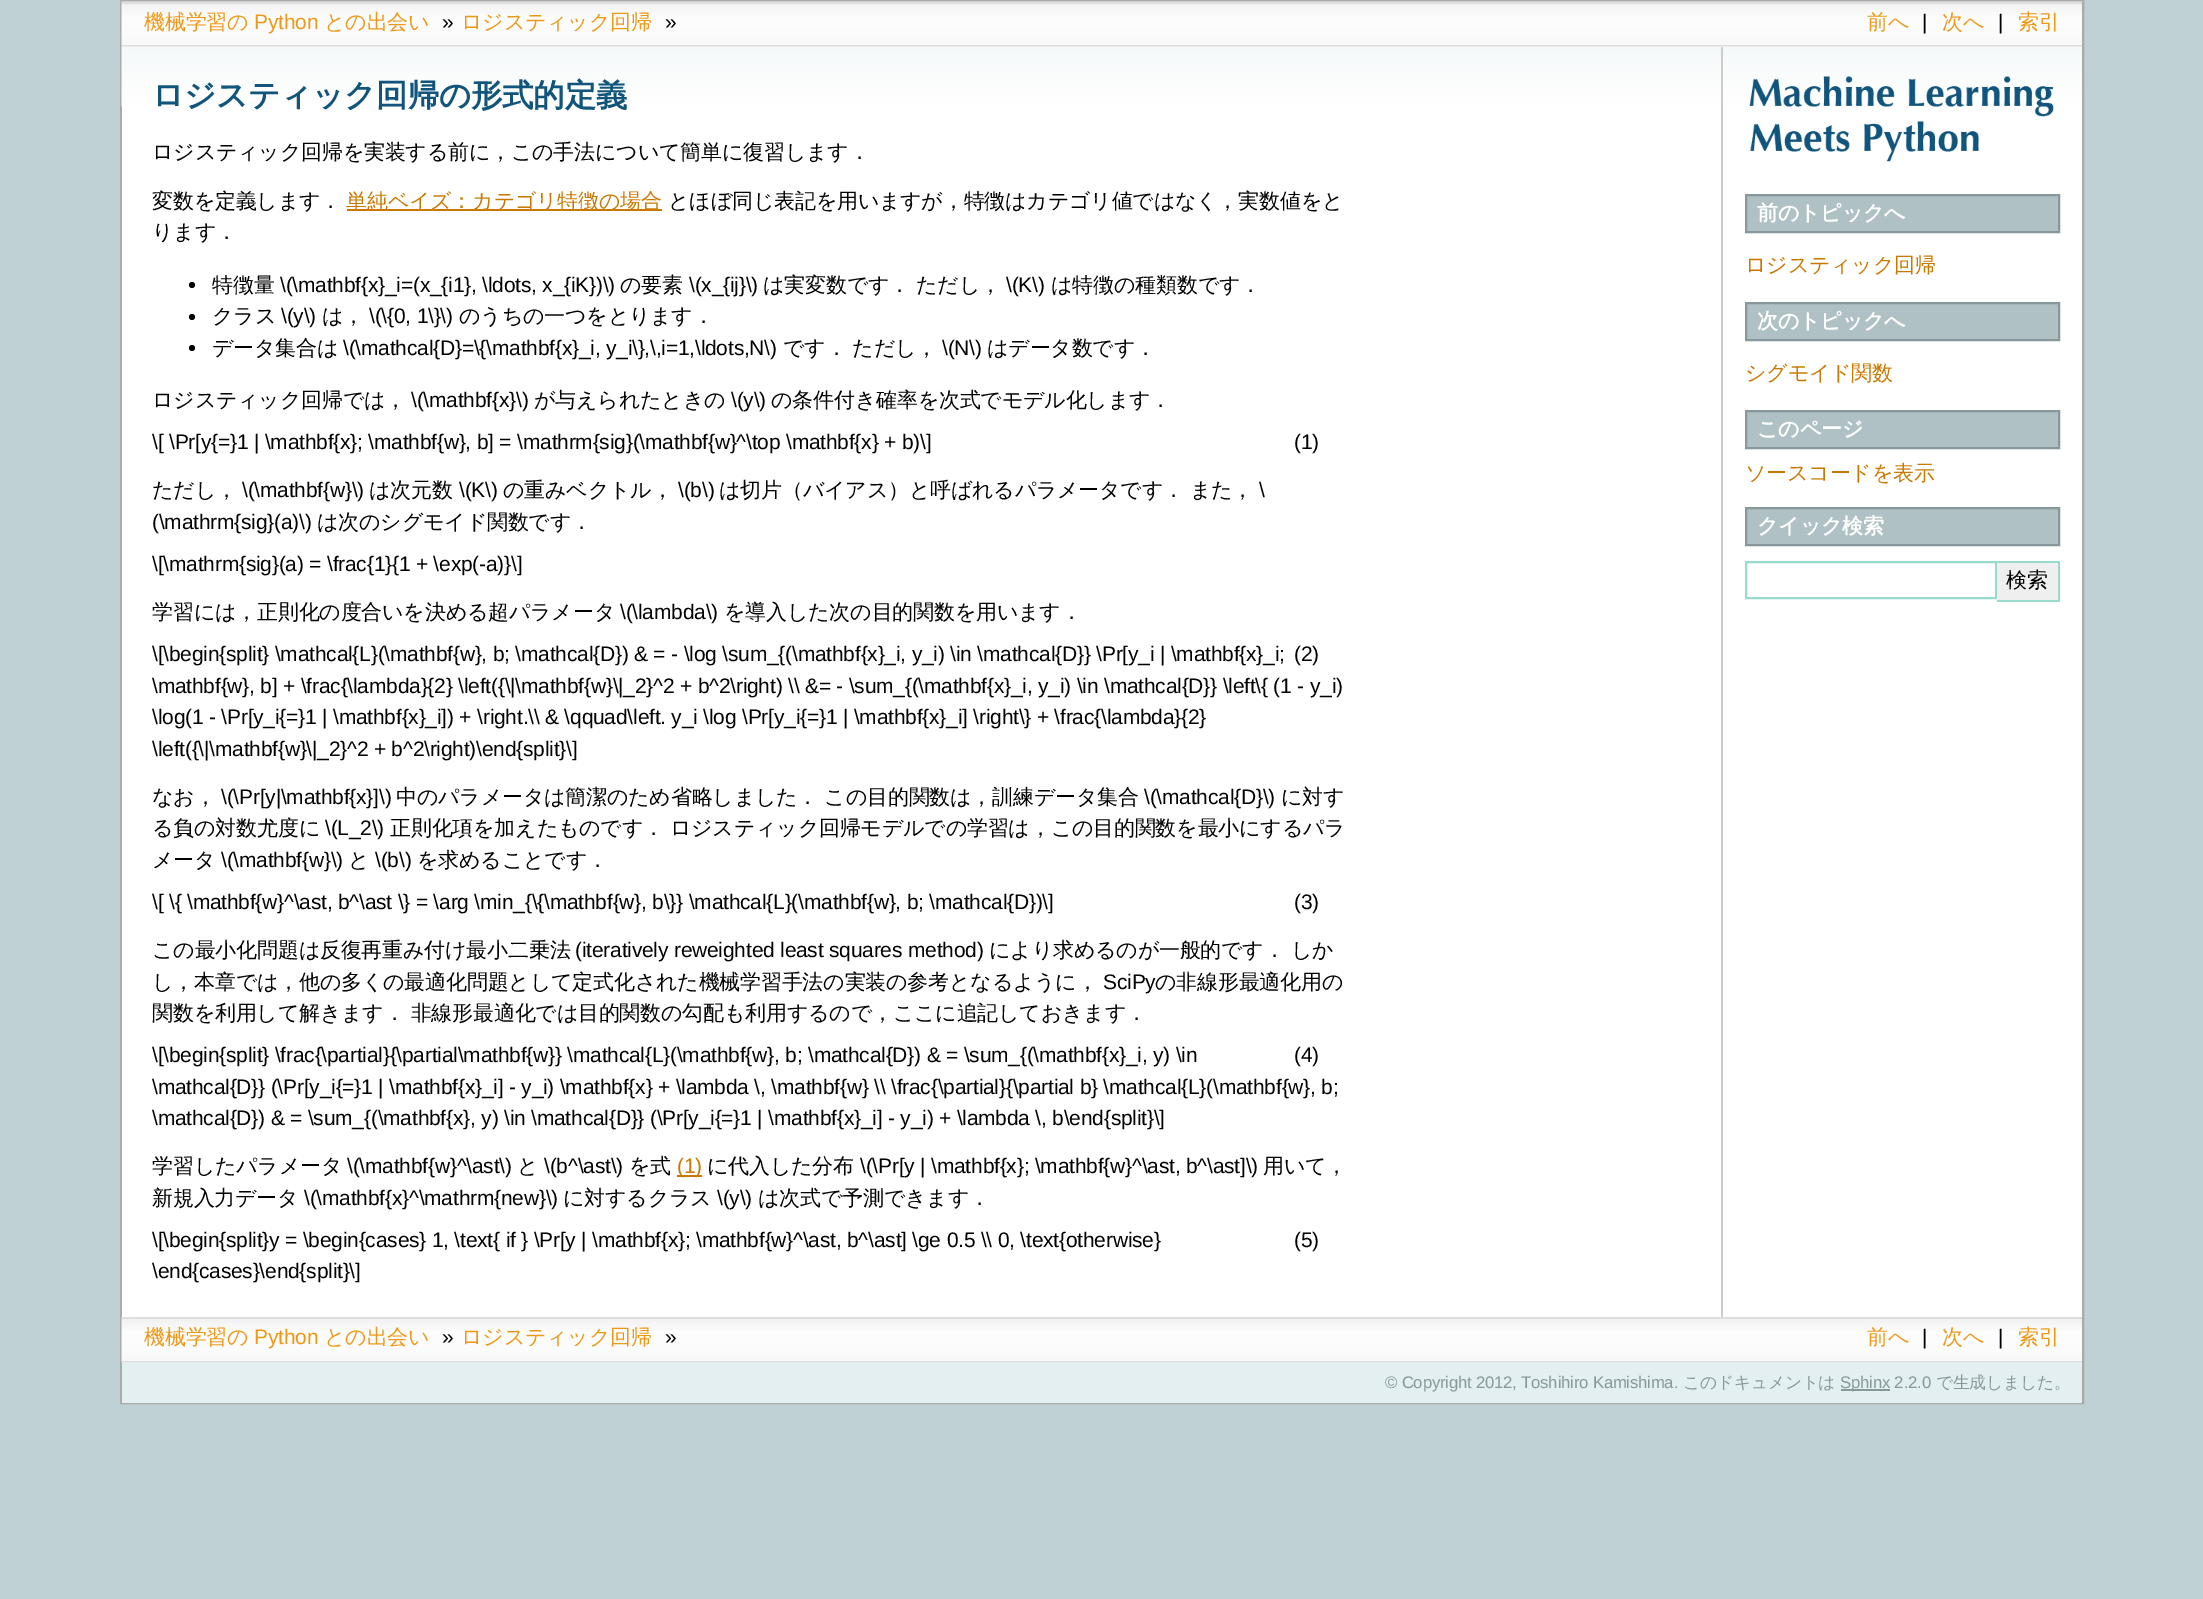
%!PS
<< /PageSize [2203 1599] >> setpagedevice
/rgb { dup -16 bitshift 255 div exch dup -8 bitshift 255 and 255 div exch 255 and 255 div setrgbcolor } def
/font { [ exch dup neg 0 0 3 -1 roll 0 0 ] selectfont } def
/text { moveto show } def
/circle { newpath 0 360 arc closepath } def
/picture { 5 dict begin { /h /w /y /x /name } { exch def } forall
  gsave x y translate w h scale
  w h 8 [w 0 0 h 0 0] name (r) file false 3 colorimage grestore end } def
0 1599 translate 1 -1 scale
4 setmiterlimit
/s1 { /WenQuanYiZenHei-Medium 21 font 16#000000 rgb } def
16#BFD1D4 rgb
0 0 2203 1599 rectfill
16#AAAAAA rgb
2 setlinewidth
121 1 1962 1402 rectstroke
(pic1.raw) 121 1 1961 46 picture
16#DDDDDD rgb
122 2 1960 2 rectfill
122 45 1960 2 rectfill
/WenQuanYiZenHei-Medium 21 font
16#EE9816 rgb
144 29 moveto -0.21 0 (機械学習の) ashow
/LiberationSans-Regular 21 font
254 29 moveto -0.21 0 (Python) ashow
/WenQuanYiZenHei-Medium 21 font
324 29 moveto -0.21 0 (との出会い) ashow
/LiberationSans-Regular 21 font
16#000000 rgb
442 29 moveto -0.21 0 (») ashow
/WenQuanYiZenHei-Medium 21 font
16#EE9816 rgb
461 29 moveto -0.21 0 (ロジスティック回帰) ashow
/LiberationSans-Regular 21 font
16#000000 rgb
665 29 moveto -0.21 0 (») ashow
/WenQuanYiZenHei-Medium 21 font
16#EE9816 rgb
1867 29 moveto -0.21 0 (前へ) ashow
/LiberationSans-Regular 21 font
16#000000 rgb
1922 29 moveto -0.21 0 (|) ashow
/WenQuanYiZenHei-Medium 21 font
16#EE9816 rgb
1942 29 moveto -0.21 0 (次へ) ashow
/LiberationSans-Regular 21 font
16#000000 rgb
1998 29 moveto -0.21 0 (|) ashow
/WenQuanYiZenHei-Medium 21 font
16#EE9816 rgb
2018 29 moveto -0.21 0 (索引) ashow
16#FFFFFF rgb
122 106 1960 1211 rectfill
(pic2.raw) 121 46 1961 61 picture
16#CCCCCC rgb
1721 47 2 1270 rectfill
/WenQuanYiZenHei-Bold 31.5 font
16#11557C rgb
152 106 moveto -0.21 0 (ロジスティック回帰の形式的定義) ashow
/WenQuanYiZenHei-Medium 21 font
16#000000 rgb
152 159 moveto -0.21 0 (ロジスティック回帰を実装する前に，この手法について簡単に復習します．) ashow
152 208 moveto -0.21 0 (変数を定義します．) ashow
16#CA7900 rgb
347 209 315 2 rectfill
346 208 moveto -0.21 0 (単純ベイズ：カテゴリ特徴の場合) ashow
16#000000 rgb
668 208 moveto -0.21 0 (とほぼ同じ表記を用いますが，特徴はカテゴリ値ではなく，実数値をと) ashow
152 239 moveto -0.21 0 (ります．) ashow
192 285 3 circle fill
212 292 moveto -0.21 0 (特徴量) ashow
/LiberationSans-Regular 21 font
280 292 moveto -0.21 0 (\\\(\\mathbf{x}_i=\(x_{i1}, \\ldots, x_{iK}\)\\\)) ashow
/WenQuanYiZenHei-Medium 21 font
620 292 moveto -0.21 0 (の要素) ashow
/LiberationSans-Regular 21 font
689 292 moveto -0.21 0 (\\\(x_{ij}\\\)) ashow
/WenQuanYiZenHei-Medium 21 font
763 292 moveto -0.21 0 (は実変数です． ただし，) ashow
/LiberationSans-Regular 21 font
1006 292 moveto -0.21 0 (\\\(K\\\)) ashow
/WenQuanYiZenHei-Medium 21 font
1051 292 moveto -0.21 0 (は特徴の種類数です．) ashow
192 317 3 circle fill
212 323 moveto -0.21 0 (クラス) ashow
/LiberationSans-Regular 21 font
281 323 moveto -0.21 0 (\\\(y\\\)) ashow
/WenQuanYiZenHei-Medium 21 font
322 323 moveto -0.21 0 (は，) ashow
/LiberationSans-Regular 21 font
369 323 moveto -0.21 0 (\\\(\\{0, 1\\}\\\)) ashow
/WenQuanYiZenHei-Medium 21 font
459 323 moveto -0.21 0 (のうちの一つをとります．) ashow
192 348 3 circle fill
212 355 moveto -0.21 0 (データ集合は) ashow
/LiberationSans-Regular 21 font
343 355 moveto -0.21 0 (\\\(\\mathcal{D}=\\{\\mathbf{x}_i, y_i\\},\\,i=1,\\ldots,N\\\)) ashow
/WenQuanYiZenHei-Medium 21 font
783 355 moveto -0.21 0 (です． ただし，) ashow
/LiberationSans-Regular 21 font
942 355 moveto -0.21 0 (\\\(N\\\)) ashow
/WenQuanYiZenHei-Medium 21 font
987 355 moveto -0.21 0 (はデータ数です．) ashow
152 407 moveto -0.21 0 (ロジスティック回帰では，) ashow
/LiberationSans-Regular 21 font
411 407 moveto -0.21 0 (\\\(\\mathbf{x}\\\)) ashow
/WenQuanYiZenHei-Medium 21 font
534 407 moveto -0.21 0 (が与えられたときの) ashow
/LiberationSans-Regular 21 font
731 407 moveto -0.21 0 (\\\(y\\\)) ashow
/WenQuanYiZenHei-Medium 21 font
771 407 moveto -0.21 0 (の条件付き確率を次式でモデル化します．) ashow
/LiberationSans-Regular 21 font
152 449 moveto -0.21 0 (\\[ \\Pr[y{=}1 | \\mathbf{x}; \\mathbf{w}, b] = \\mathrm{sig}\(\\mathbf{w}^\\top \\mathbf{x} + b\)\\]) ashow
1294 449 moveto -0.21 0 (\(1\)) ashow
/WenQuanYiZenHei-Medium 21 font
152 497 moveto -0.21 0 (ただし，) ashow
/LiberationSans-Regular 21 font
242 497 moveto -0.21 0 (\\\(\\mathbf{w}\\\)) ashow
/WenQuanYiZenHei-Medium 21 font
369 497 moveto -0.21 0 (は次元数) ashow
/LiberationSans-Regular 21 font
459 497 moveto -0.21 0 (\\\(K\\\)) ashow
/WenQuanYiZenHei-Medium 21 font
503 497 moveto -0.21 0 (の重みベクトル，) ashow
/LiberationSans-Regular 21 font
678 497 moveto -0.21 0 (\\\(b\\\)) ashow
/WenQuanYiZenHei-Medium 21 font
719 497 moveto -0.21 0 (は切片（バイアス）と呼ばれるパラメータです． また，) ashow
/LiberationSans-Regular 21 font
1259 497 moveto -0.21 0 (\\) ashow
152 529 moveto -0.21 0 (\(\\mathrm{sig}\(a\)\\\)) ashow
/WenQuanYiZenHei-Medium 21 font
317 529 moveto -0.21 0 (は次のシグモイド関数です．) ashow
/LiberationSans-Regular 21 font
152 571 moveto -0.21 0 (\\[\\mathrm{sig}\(a\) = \\frac{1}{1 + \\exp\(-a\)}\\]) ashow
/WenQuanYiZenHei-Medium 21 font
152 619 moveto -0.21 0 (学習には，正則化の度合いを決める超パラメータ) ashow
/LiberationSans-Regular 21 font
620 619 moveto -0.21 0 (\\\(\\lambda\\\)) ashow
/WenQuanYiZenHei-Medium 21 font
724 619 moveto -0.21 0 (を導入した次の目的関数を用います．) ashow
/LiberationSans-Regular 21 font
152 661 moveto -0.21 0 (\\[\\begin{split} \\mathcal{L}\(\\mathbf{w}, b; \\mathcal{D}\) & = - \\log \\sum_{\(\\mathbf{x}_i, y_i\) \\in \\mathcal{D}} \\Pr[y_i | \\mathbf{x}_i;) ashow
1294 661 moveto -0.21 0 (\(2\)) ashow
152 693 moveto -0.21 0 (\\mathbf{w}, b] + \\frac{\\lambda}{2} \\left\({\\|\\mathbf{w}\\|_2}^2 + b^2\\right\) \\\\ &= - \\sum_{\(\\mathbf{x}_i, y_i\) \\in \\mathcal{D}} \\left\\{ \(1 - y_i\)) ashow
152 724 moveto -0.21 0 (\\log\(1 - \\Pr[y_i{=}1 | \\mathbf{x}_i]\) + \\right.\\\\ & \\qquad\\left. y_i \\log \\Pr[y_i{=}1 | \\mathbf{x}_i] \\right\\} + \\frac{\\lambda}{2}) ashow
152 756 moveto -0.21 0 (\\left\({\\|\\mathbf{w}\\|_2}^2 + b^2\\right\)\\end{split}\\]) ashow
/WenQuanYiZenHei-Medium 21 font
152 804 moveto -0.21 0 (なお，) ashow
/LiberationSans-Regular 21 font
221 804 moveto -0.21 0 (\\\(\\Pr[y|\\mathbf{x}]\\\)) ashow
/WenQuanYiZenHei-Medium 21 font
396 804 moveto -0.21 0 (中のパラメータは簡潔のため省略しました． この目的関数は，訓練データ集合) ashow
/LiberationSans-Regular 21 font
1144 804 moveto -0.21 0 (\\\(\\mathcal{D}\\\)) ashow
/WenQuanYiZenHei-Medium 21 font
1281 804 moveto -0.21 0 (に対す) ashow
152 835 moveto -0.21 0 (る負の対数尤度に) ashow
/LiberationSans-Regular 21 font
325 835 moveto -0.21 0 (\\\(L_2\\\)) ashow
/WenQuanYiZenHei-Medium 21 font
390 835 moveto -0.21 0 (正則化項を加えたものです． ロジスティック回帰モデルでの学習は，この目的関数を最小にするパラ) ashow
152 867 moveto -0.21 0 (メータ) ashow
/LiberationSans-Regular 21 font
221 867 moveto -0.21 0 (\\\(\\mathbf{w}\\\)) ashow
/WenQuanYiZenHei-Medium 21 font
348 867 moveto -0.21 0 (と) ashow
/LiberationSans-Regular 21 font
375 867 moveto -0.21 0 (\\\(b\\\)) ashow
/WenQuanYiZenHei-Medium 21 font
417 867 moveto -0.21 0 (を求めることです．) ashow
/LiberationSans-Regular 21 font
152 909 moveto -0.21 0 (\\[ \\{ \\mathbf{w}^\\ast, b^\\ast \\} = \\arg \\min_{\\{\\mathbf{w}, b\\}} \\mathcal{L}\(\\mathbf{w}, b; \\mathcal{D}\)\\]) ashow
1294 909 moveto -0.21 0 (\(3\)) ashow
/WenQuanYiZenHei-Medium 21 font
152 957 moveto -0.21 0 (この最小化問題は反復再重み付け最小二乗法) ashow
/LiberationSans-Regular 21 font
575 957 moveto -0.21 0 (\(iteratively reweighted least squares method\)) ashow
/WenQuanYiZenHei-Medium 21 font
989 957 moveto -0.21 0 (により求めるのが一般的です．) ashow
1291 957 moveto -0.21 0 (しか) ashow
152 989 moveto -0.21 0 (し，本章では，他の多くの最適化問題として定式化された機械学習手法の実装の参考となるように，) ashow
/LiberationSans-Regular 21 font
1103 989 moveto -0.21 0 (SciPy) ashow
/WenQuanYiZenHei-Medium 21 font
1155 989 moveto -0.21 0 (の非線形最適化用の) ashow
152 1020 moveto -0.21 0 (関数を利用して解きます． 非線形最適化では目的関数の勾配も利用するので，ここに追記しておきます．) ashow
/LiberationSans-Regular 21 font
152 1062 moveto -0.21 0 (\\[\\begin{split} \\frac{\\partial}{\\partial\\mathbf{w}} \\mathcal{L}\(\\mathbf{w}, b; \\mathcal{D}\) & = \\sum_{\(\\mathbf{x}_i, y\) \\in) ashow
1294 1062 moveto -0.21 0 (\(4\)) ashow
152 1094 moveto -0.21 0 (\\mathcal{D}} \(\\Pr[y_i{=}1 | \\mathbf{x}_i] - y_i\) \\mathbf{x} + \\lambda \\, \\mathbf{w} \\\\ \\frac{\\partial}{\\partial b} \\mathcal{L}\(\\mathbf{w}, b;) ashow
152 1125 moveto -0.21 0 (\\mathcal{D}\) & = \\sum_{\(\\mathbf{x}, y\) \\in \\mathcal{D}} \(\\Pr[y_i{=}1 | \\mathbf{x}_i] - y_i\) + \\lambda \\, b\\end{split}\\]) ashow
/WenQuanYiZenHei-Medium 21 font
152 1173 moveto -0.21 0 (学習したパラメータ) ashow
/LiberationSans-Regular 21 font
347 1173 moveto -0.21 0 (\\\(\\mathbf{w}^\\ast\\\)) ashow
/WenQuanYiZenHei-Medium 21 font
517 1173 moveto -0.21 0 (と) ashow
/LiberationSans-Regular 21 font
544 1173 moveto -0.21 0 (\\\(b^\\ast\\\)) ashow
/WenQuanYiZenHei-Medium 21 font
629 1173 moveto -0.21 0 (を式) ashow
16#CA7900 rgb
677 1175 25 2 rectfill
/LiberationSans-Regular 21 font
677 1173 moveto -0.21 0 (\(1\)) ashow
/WenQuanYiZenHei-Medium 21 font
16#000000 rgb
707 1173 moveto -0.21 0 (に代入した分布) ashow
/LiberationSans-Regular 21 font
860 1173 moveto -0.21 0 (\\\(\\Pr[y | \\mathbf{x}; \\mathbf{w}^\\ast, b^\\ast]\\\)) ashow
/WenQuanYiZenHei-Medium 21 font
1263 1173 moveto -0.21 0 (用いて，) ashow
152 1205 moveto -0.21 0 (新規入力データ) ashow
/LiberationSans-Regular 21 font
304 1205 moveto -0.21 0 (\\\(\\mathbf{x}^\\mathrm{new}\\\)) ashow
/WenQuanYiZenHei-Medium 21 font
563 1205 moveto -0.21 0 (に対するクラス) ashow
/LiberationSans-Regular 21 font
717 1205 moveto -0.21 0 (\\\(y\\\)) ashow
/WenQuanYiZenHei-Medium 21 font
758 1205 moveto -0.21 0 (は次式で予測できます．) ashow
/LiberationSans-Regular 21 font
152 1247 moveto -0.21 0 (\\[\\begin{split}y = \\begin{cases} 1, \\text{ if } \\Pr[y | \\mathbf{x}; \\mathbf{w}^\\ast, b^\\ast] \\ge 0.5 \\\\ 0, \\text{otherwise}) ashow
1294 1247 moveto -0.21 0 (\(5\)) ashow
152 1278 moveto -0.21 0 (\\end{cases}\\end{split}\\]) ashow
(pic3.raw) 1749 76 305 86 picture
16#AFC1C4 rgb
1746 195 moveto 2059 195 lineto 2059 232 lineto 1746 232 lineto closepath gsave fill grestore
16#86989B rgb
stroke
/WenQuanYiZenHei-Bold 21 font
16#FFFFFF rgb
1757 220 moveto -0.21 0 (前のトピックへ) ashow
/WenQuanYiZenHei-Medium 21 font
16#CA7900 rgb
1745 272 moveto -0.21 0 (ロジスティック回帰) ashow
16#AFC1C4 rgb
1746 303 moveto 2059 303 lineto 2059 340 lineto 1746 340 lineto closepath gsave fill grestore
16#86989B rgb
stroke
/WenQuanYiZenHei-Bold 21 font
16#FFFFFF rgb
1757 328 moveto -0.21 0 (次のトピックへ) ashow
/WenQuanYiZenHei-Medium 21 font
16#CA7900 rgb
1745 380 moveto -0.21 0 (シグモイド関数) ashow
16#AFC1C4 rgb
1746 411 moveto 2059 411 lineto 2059 448 lineto 1746 448 lineto closepath gsave fill grestore
16#86989B rgb
stroke
/WenQuanYiZenHei-Bold 21 font
16#FFFFFF rgb
1757 436 moveto -0.21 0 (このページ) ashow
/WenQuanYiZenHei-Medium 21 font
16#CA7900 rgb
1745 480 moveto -0.21 0 (ソースコードを表示) ashow
16#AFC1C4 rgb
1746 508 moveto 2059 508 lineto 2059 545 lineto 1746 545 lineto closepath gsave fill grestore
16#86989B rgb
stroke
/WenQuanYiZenHei-Bold 21 font
16#FFFFFF rgb
1757 533 moveto -0.21 0 (クイック検索) ashow
16#98DBCC rgb
1746 562 250 36 rectstroke
16#EFEFEF rgb
1997 563 61 37 rectfill
16#98DBCC rgb
1997 561 63 2 rectfill
2058 561 2 41 rectfill
1997 600 63 2 rectfill
s1
(検索) 2006 587 text
(pic4.raw) 121 1317 1961 45 picture
16#DDDDDD rgb
122 1317 1960 2 rectfill
122 1361 1960 1 rectfill
16#EE9816 rgb
144 1344 moveto -0.21 0 (機械学習の) ashow
/LiberationSans-Regular 21 font
254 1344 moveto -0.21 0 (Python) ashow
/WenQuanYiZenHei-Medium 21 font
324 1344 moveto -0.21 0 (との出会い) ashow
/LiberationSans-Regular 21 font
16#000000 rgb
442 1344 moveto -0.21 0 (») ashow
/WenQuanYiZenHei-Medium 21 font
16#EE9816 rgb
461 1344 moveto -0.21 0 (ロジスティック回帰) ashow
/LiberationSans-Regular 21 font
16#000000 rgb
665 1344 moveto -0.21 0 (») ashow
/WenQuanYiZenHei-Medium 21 font
16#EE9816 rgb
1867 1344 moveto -0.21 0 (前へ) ashow
/LiberationSans-Regular 21 font
16#000000 rgb
1922 1344 moveto -0.21 0 (|) ashow
/WenQuanYiZenHei-Medium 21 font
16#EE9816 rgb
1942 1344 moveto -0.21 0 (次へ) ashow
/LiberationSans-Regular 21 font
16#000000 rgb
1998 1344 moveto -0.21 0 (|) ashow
/WenQuanYiZenHei-Medium 21 font
16#EE9816 rgb
2018 1344 moveto -0.21 0 (索引) ashow
16#E3EFF1 rgb
122 1362 1960 41 rectfill
/LiberationSans-Regular 16.75 font
16#86989B rgb
1385 1388 moveto -0.21 0 (© Copyright 2012, Toshihiro Kamishima.) ashow
/WenQuanYiZenHei-Medium 16.75 font
1683 1388 moveto -0.21 0 (このドキュメントは) ashow
1841 1389 49 2 rectfill
/LiberationSans-Regular 16.75 font
1840 1388 moveto -0.21 0 (Sphinx 2.2.0) ashow
/WenQuanYiZenHei-Medium 16.75 font
1936 1388 moveto -0.21 0 (で生成しました。) ashow
showpage
